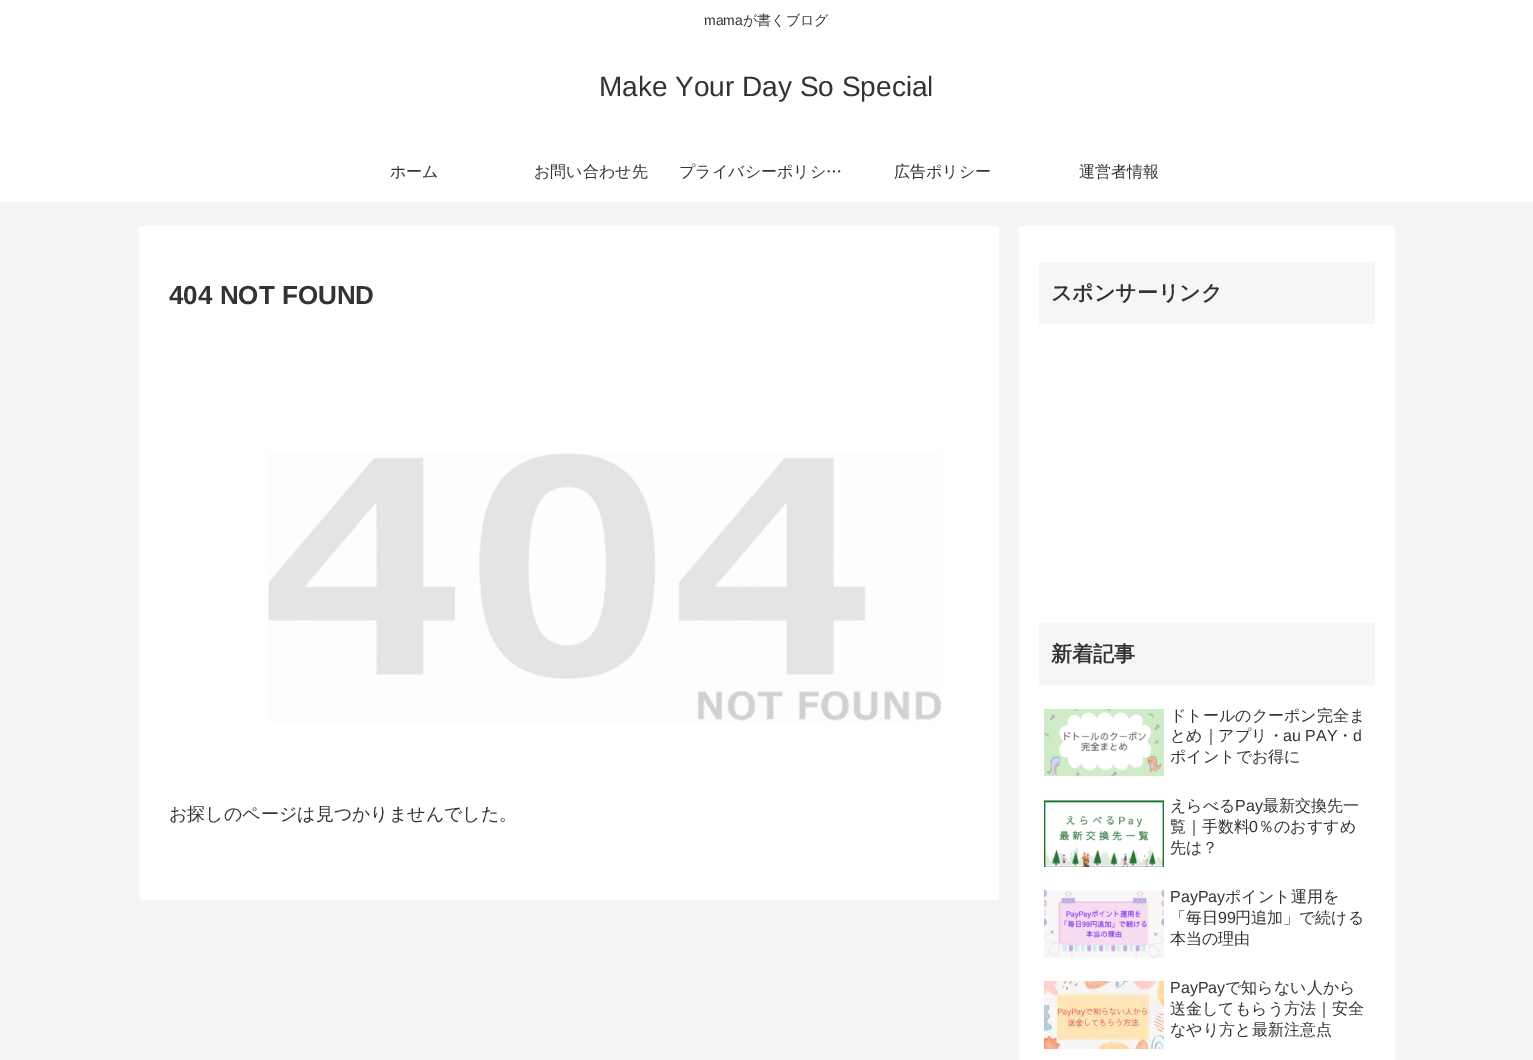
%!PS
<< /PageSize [1533 1060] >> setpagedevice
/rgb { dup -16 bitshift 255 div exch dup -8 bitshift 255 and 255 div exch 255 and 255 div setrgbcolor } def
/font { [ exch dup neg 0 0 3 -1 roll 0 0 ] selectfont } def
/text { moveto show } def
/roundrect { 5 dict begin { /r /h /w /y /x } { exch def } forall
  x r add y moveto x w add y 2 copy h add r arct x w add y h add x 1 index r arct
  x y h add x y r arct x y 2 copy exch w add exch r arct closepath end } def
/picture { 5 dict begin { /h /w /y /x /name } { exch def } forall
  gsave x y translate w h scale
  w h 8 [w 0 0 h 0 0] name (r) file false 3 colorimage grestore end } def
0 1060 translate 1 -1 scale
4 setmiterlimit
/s1 { /LiberationSans-Regular 14 font 16#333333 rgb } def
/s2 { /WenQuanYiZenHei-Medium 14 font 16#333333 rgb } def
/s3 { /LiberationSans-Regular 28 font 16#333333 rgb } def
/s4 { /WenQuanYiZenHei-Medium 16 font 16#333333 rgb } def
/s5 { /LiberationSans-Bold 26 font 16#333333 rgb } def
/s6 { /WenQuanYiZenHei-Medium 18 font 16#333333 rgb } def
/s7 { /WenQuanYiZenHei-Bold 21 font 16#333333 rgb } def
/s8 { /LiberationSans-Regular 16 font 16#333333 rgb } def
16#F4F5F7 rgb
0 0 1533 1060 rectfill
16#FFFFFF rgb
0 0 1533 202 rectfill
s1
(mama) 704 25 text
s2
(が書くブログ) 743 25 text
s3
(Make Your Day So Special) 599 96 text
s4
(ホーム) 390 177 text
(お問い合わせ先) 534 177 text
(プライバシーポリシ…) 679 177 text
(広告ポリシー) 894 177 text
(運営者情報) 1079 177 text
16#FFFFFF rgb
139 226 860 674 4 roundrect fill
s5
(404 NOT FOUND) 169 304 text
(pic1.raw) 267 452 675 271 picture
s6
(お探しのページは見つかりませんでした。) 169 820 text
16#FFFFFF rgb
1019 226 376 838 4 roundrect fill
16#F5F6F7 rgb
1039 262 336 62 2 roundrect fill
s7
(スポンサーリンク) 1051 300 text
16#F5F6F7 rgb
1039 623 336 62 2 roundrect fill
s7
(新着記事) 1051 661 text
(pic2.raw) 1044 709 120 67 picture
s4
(ドトールのクーポン完全ま) 1170 721 text
(とめ｜アプリ・) 1170 741 text
s8
(au PAY) 1283 741 text
s4
(・) 1337 741 text
s8
(d) 1353 741 text
s4
(ポイントでお得に) 1170 762 text
(pic3.raw) 1044 800 120 67 picture
(えらべる) 1170 811 text
s8
(Pay) 1235 811 text
s4
(最新交換先一) 1263 811 text
(覧｜手数料) 1170 832 text
s8
(0) 1249 832 text
s4
(％のおすすめ) 1258 832 text
(先は？) 1170 853 text
(pic4.raw) 1044 890 120 68 picture
s8
(PayPay) 1170 902 text
s4
(ポイント運用を) 1225 902 text
(「毎日) 1170 923 text
s8
(99) 1218 923 text
s4
(円追加」で続ける) 1235 923 text
(本当の理由) 1170 944 text
(pic5.raw) 1044 981 120 68 picture
s8
(PayPay) 1170 993 text
s4
(で知らない人から) 1225 993 text
(送金してもらう方法｜安全) 1170 1014 text
(なやり方と最新注意点) 1170 1035 text
showpage
